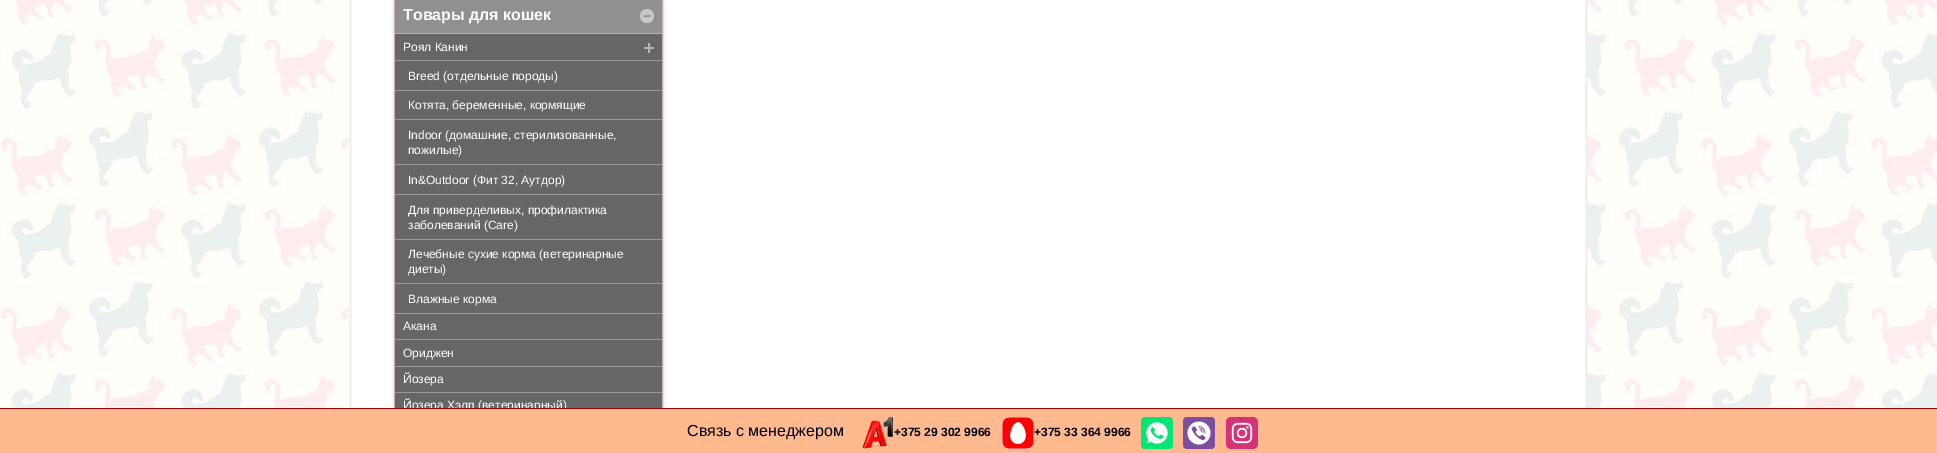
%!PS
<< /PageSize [1937 453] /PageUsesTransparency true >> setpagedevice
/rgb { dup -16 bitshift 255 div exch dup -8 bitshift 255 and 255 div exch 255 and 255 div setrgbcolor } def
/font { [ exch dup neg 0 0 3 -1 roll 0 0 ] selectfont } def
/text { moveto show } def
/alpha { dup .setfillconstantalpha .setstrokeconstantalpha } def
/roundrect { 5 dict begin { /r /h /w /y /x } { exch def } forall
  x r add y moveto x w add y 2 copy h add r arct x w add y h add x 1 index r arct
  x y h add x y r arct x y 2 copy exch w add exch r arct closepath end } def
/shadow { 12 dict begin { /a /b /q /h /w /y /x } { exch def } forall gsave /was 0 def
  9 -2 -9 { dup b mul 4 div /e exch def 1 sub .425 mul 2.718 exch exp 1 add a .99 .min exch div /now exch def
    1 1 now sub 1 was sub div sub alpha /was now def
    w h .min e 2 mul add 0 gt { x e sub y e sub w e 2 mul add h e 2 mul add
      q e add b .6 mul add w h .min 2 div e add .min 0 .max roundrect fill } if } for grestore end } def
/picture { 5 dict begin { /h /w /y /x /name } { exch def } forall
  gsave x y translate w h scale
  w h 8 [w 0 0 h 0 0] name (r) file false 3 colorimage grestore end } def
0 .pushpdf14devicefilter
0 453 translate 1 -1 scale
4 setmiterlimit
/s1 { /LiberationSans-Bold 16 font 16#FFFFFF rgb } def
/s2 { /LiberationSans-Regular 12 font 16#FFFFFF rgb } def
/s3 { /LiberationSans-Regular 16 font 16#000000 rgb } def
/s4 { /LiberationSans-Bold 12 font 16#000000 rgb } def
16#FFFFFF rgb
0 0 1937 453 rectfill
(pic1.raw) 0 0 1937 408 picture
(pic2.raw) 349 0 1239 408 picture
16#CCAF9F rgb
394.5 -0.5 268 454 rectstroke
16#BBBBBB rgb
395 -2 267 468 5 2.5 1 shadow
gsave 395 -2 267 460 5 roundrect clip newpath
<< /ShadingType 2 /ColorSpace /DeviceRGB /Coords [528 -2 529 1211] /Extend [true true] /Function << /FunctionType 2 /Domain [0 1] /C0 [0.467 0.455 0.455] /C1 [0.365 0.365 0.365] /N 1 >> >> shfill grestore
0.2 alpha
16#FFFFFF rgb
395 0 267 33 rectfill
1 alpha
16#B6B4B4 rgb
395 33 267 1 rectfill
(pic3.raw) 640 9 14 14 picture
s1
(Товары для кошек) 403 20 text
16#666666 rgb
395 34 267 26 rectfill
16#989898 rgb
395 60 267 1 rectfill
(pic4.raw) 644 43 10 10 picture
s2
(Роял Канин) 403 51 text
16#666666 rgb
395 61 267 29 rectfill
16#989898 rgb
395 90 267 1 rectfill
s2
(Breed \(отдельные породы\)) 408 80 text
16#666666 rgb
395 91 267 28 rectfill
16#989898 rgb
395 119 267 1 rectfill
s2
(Котята, беременные, кормящие) 408 109 text
16#666666 rgb
395 120 267 44 rectfill
16#989898 rgb
395 164 267 1 rectfill
s2
(Indoor \(домашние, стерилизованные,) 408 139 text
(пожилые\)) 408 154 text
16#666666 rgb
395 165 267 29 rectfill
16#989898 rgb
395 194 267 1 rectfill
s2
(In&Outdoor \(Фит 32, Аутдор\)) 408 184 text
16#666666 rgb
395 195 267 44 rectfill
16#989898 rgb
395 239 267 1 rectfill
s2
(Для приверделивых, профилактика) 408 214 text
(заболеваний \(Care\)) 408 229 text
16#666666 rgb
395 240 267 43 rectfill
16#989898 rgb
395 283 267 1 rectfill
s2
(Лечебные сухие корма \(ветеринарные) 408 258 text
(диеты\)) 408 273 text
16#666666 rgb
395 284 267 29 rectfill
16#989898 rgb
395 313 267 1 rectfill
s2
(Влажные корма) 408 303 text
16#666666 rgb
395 314 267 25 rectfill
16#989898 rgb
395 339 267 1 rectfill
s2
(Акана) 403 330 text
16#666666 rgb
395 340 267 26 rectfill
16#989898 rgb
395 366 267 1 rectfill
s2
(Ориджен) 403 357 text
16#666666 rgb
395 367 267 25 rectfill
16#989898 rgb
395 392 267 1 rectfill
s2
(Йозера) 403 383 text
16#666666 rgb
395 393 267 15 rectfill
s2
(Йозера Хэлп \(ветеринарный\)) 403 409 text
16#FFB98E rgb
0 409 1937 44 rectfill
16#9B0000 rgb
0 408 1937 1 rectfill
s3
(Связь с менеджером) 687 436 text
(pic5.raw) 862 417 31 32 picture
s4
(+375 29 302 9966) 894 436 text
(pic6.raw) 1002 417 32 32 picture
(+375 33 364 9966) 1034 436 text
(pic7.raw) 1141 417 32 32 picture
(pic8.raw) 1183 417 32 32 picture
(pic9.raw) 1226 417 32 32 picture
.poppdf14devicefilter showpage
